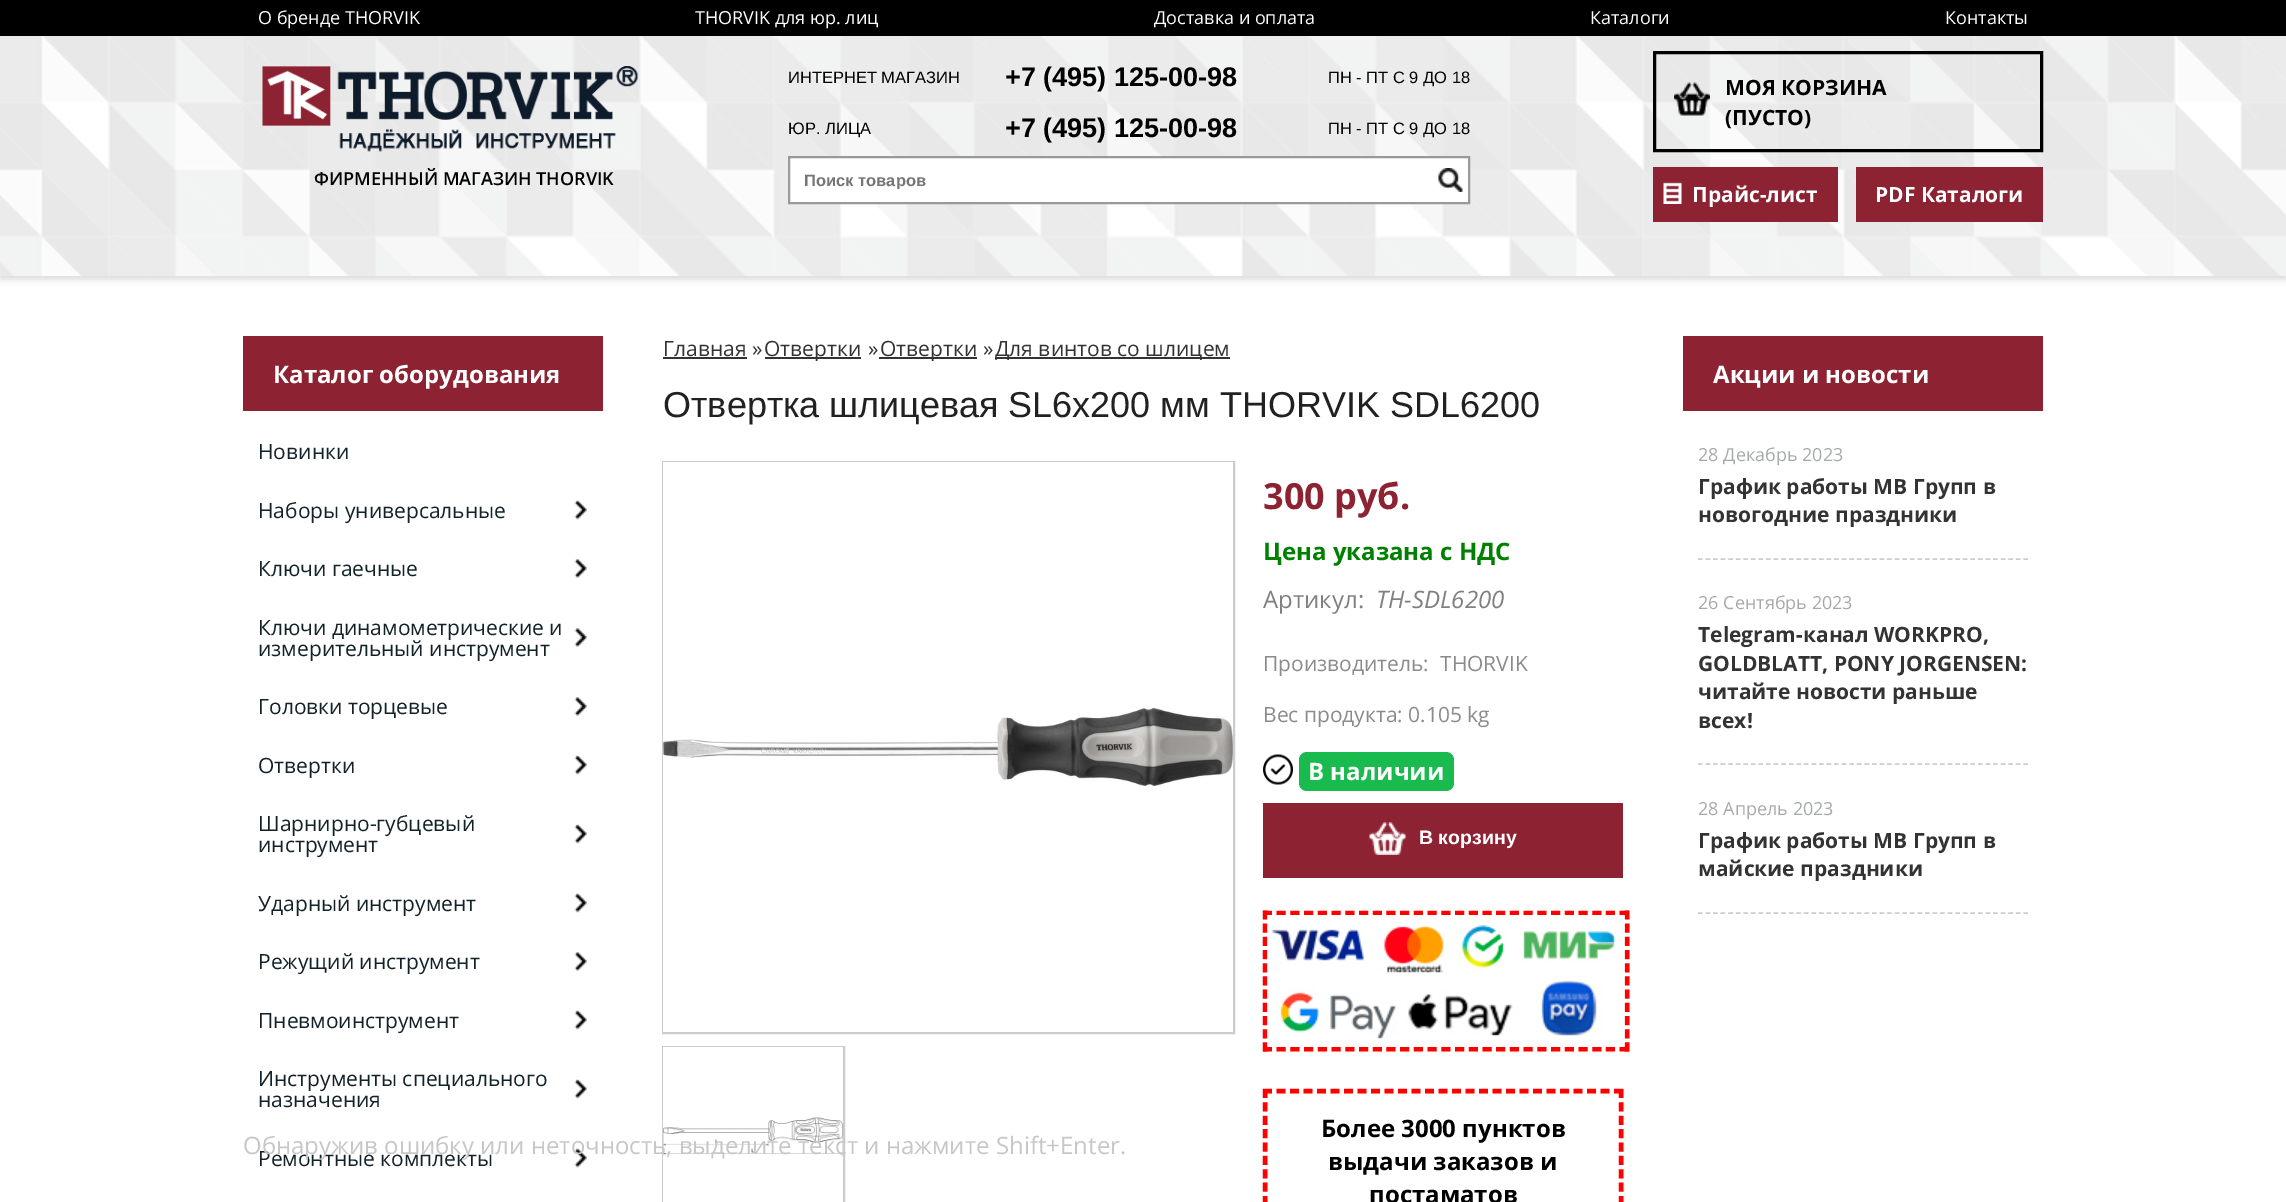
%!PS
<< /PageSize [2286 1202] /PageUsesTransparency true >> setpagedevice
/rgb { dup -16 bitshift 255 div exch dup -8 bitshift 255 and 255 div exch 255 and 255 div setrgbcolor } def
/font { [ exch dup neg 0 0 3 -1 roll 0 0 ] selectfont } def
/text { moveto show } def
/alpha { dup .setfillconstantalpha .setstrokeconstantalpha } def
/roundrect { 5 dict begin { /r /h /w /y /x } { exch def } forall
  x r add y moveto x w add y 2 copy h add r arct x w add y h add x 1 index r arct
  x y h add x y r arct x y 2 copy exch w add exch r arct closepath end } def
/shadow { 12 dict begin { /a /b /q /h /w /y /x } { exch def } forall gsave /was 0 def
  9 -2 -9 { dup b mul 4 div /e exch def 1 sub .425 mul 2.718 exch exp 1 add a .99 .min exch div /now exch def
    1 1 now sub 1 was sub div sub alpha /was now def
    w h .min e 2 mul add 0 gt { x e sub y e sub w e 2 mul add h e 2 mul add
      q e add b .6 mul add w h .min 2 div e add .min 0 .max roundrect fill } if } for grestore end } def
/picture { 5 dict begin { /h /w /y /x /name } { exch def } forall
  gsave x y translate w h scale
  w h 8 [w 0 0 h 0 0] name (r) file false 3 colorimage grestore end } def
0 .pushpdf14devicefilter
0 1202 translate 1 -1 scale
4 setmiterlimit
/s1 { /OpenSans-Regular 18 font 16#FFFFFF rgb } def
/s2 { /OpenSans-SemiBold 18 font 16#000000 rgb } def
/s3 { /LiberationSans-Regular 16.5 font 16#000000 rgb } def
/s4 { /LiberationSans-Bold 27 font 16#000000 rgb } def
/s5 { /LiberationSans-Bold 16.5 font 16#757575 rgb } def
/s6 { /OpenSans-Bold 21 font 16#000000 rgb } def
/s7 { /OpenSans-Bold 21 font 16#FFFFFF rgb } def
/s8 { /OpenSans-Bold 24 font 16#FFFFFF rgb } def
/s9 { /OpenSans-Regular 21 font 16#132229 rgb } def
/s10 { /OpenSans-Regular 21 font 16#333333 rgb } def
/s11 { /LiberationSans-Regular 36 font 16#212121 rgb } def
/s12 { /OpenSans-Bold 36 font 16#8C2232 rgb } def
/s13 { /OpenSans-Bold 24 font 16#008000 rgb } def
/s14 { /OpenSans-Regular 24 font 16#808080 rgb } def
/s15 { /OpenSans-Italic 24 font 16#808080 rgb } def
/s16 { /OpenSans-Regular 21 font 16#8B8B8B rgb } def
/s17 { /LiberationSans-Bold 19.5 font 16#FFFFFF rgb } def
/s18 { /OpenSans-Bold 24 font 16#000000 rgb } def
/s19 { /OpenSans-Regular 18 font 16#A6A9AA rgb } def
/s20 { /OpenSans-Bold 21 font 16#333333 rgb } def
/s21 { /OpenSans-Regular 24 font 16#C7C7C7 rgb } def
16#FFFFFF rgb
0 0 2286 1202 rectfill
16#000000 rgb
0 0 2286 36 rectfill
s1
(О бренде THORVIK) 258 24 text
(THORVIK для юр. лиц) 695 24 text
(Доставка и оплата) 1154 24 text
(Каталоги) 1590 24 text
(Контакты) 1945 24 text
16#000000 rgb
0 39 2286 240 0 4 0.16 shadow
(pic1.raw) 0 36 2286 240 picture
(pic2.raw) 262 66 376 86 picture
s2
(ФИРМЕННЫЙ МАГАЗИН THORVIK) 314 185 text
s3
(ИНТЕРНЕТ МАГАЗИН) 788 83 text
s4
(+7 \(495\) 125-00-98) 1005 86 text
s3
(ПН - ПТ С 9 ДО 18) 1328 83 text
(ЮР. ЛИЦА) 788 134 text
s4
(+7 \(495\) 125-00-98) 1005 137 text
s3
(ПН - ПТ С 9 ДО 18) 1328 134 text
16#FFFFFF rgb
789 157 moveto 1469 157 lineto 1469 203 lineto 789 203 lineto closepath gsave fill grestore
16#999999 rgb
2 setlinewidth
stroke
gsave
804 171 650 18 rectclip
s5
(Поиск товаров) 804 186 text
grestore
(pic3.raw) 1438 168 25 24 picture
16#000000 rgb
3 setlinewidth
1654.5 52.5 387 98 rectstroke
(pic4.raw) 1674 82 36 34 picture
s6
(МОЯ КОРЗИНА) 1725 95 text
(\(ПУСТО\)) 1725 125 text
16#8C2232 rgb
1653 167 185 55 rectfill
(pic5.raw) 1663 182 19 22 picture
s7
(Прайс-лист) 1692 202 text
16#8C2232 rgb
1856 167 187 55 rectfill
s7
(PDF Каталоги) 1875 202 text
16#8C2232 rgb
243 336 360 75 rectfill
s8
(Каталог оборудования) 273 383 text
s9
(Новинки) 258 459 text
(Наборы универсальные) 258 518 text
(pic6.raw) 574 500 13 20 picture
(Ключи гаечные) 258 576 text
(pic7.raw) 574 559 13 19 picture
(Ключи динамометрические и) 258 635 text
(измерительный инструмент) 258 656 text
(pic7.raw) 574 628 13 19 picture
(Головки торцевые) 258 714 text
(pic7.raw) 574 697 13 19 picture
(Отвертки) 258 773 text
(pic6.raw) 574 755 13 20 picture
(Шарнирно-губцевый) 258 831 text
(инструмент) 258 852 text
(pic6.raw) 574 824 13 20 picture
(Ударный инструмент) 258 911 text
(pic6.raw) 574 893 13 20 picture
(Режущий инструмент) 258 969 text
(pic7.raw) 574 952 13 19 picture
(Пневмоинструмент) 258 1028 text
(pic6.raw) 574 1010 13 20 picture
(Инструменты специального) 258 1086 text
(назначения) 258 1107 text
(pic6.raw) 574 1079 13 20 picture
(Ремонтные комплекты) 258 1166 text
(pic6.raw) 574 1148 13 20 picture
s10
(Главная) 663 356 text
663 357 84 2 rectfill
(») 752 356 text
765 357 96 2 rectfill
(Отвертки) 764 356 text
(») 868 356 text
879 357 98 2 rectfill
(Отвертки) 880 356 text
(») 983 356 text
995 357 235 2 rectfill
(Для винтов со шлицем) 995 356 text
s11
(Отвертка шлицевая SL6х200 мм THORVIK SDL6200) 663 417 text
16#CCCCCC rgb
2 setlinewidth
663 462 571 571 rectstroke
16#FFFFFF rgb
663 462 570 570 rectfill
(pic8.raw) 663 708 570 78 picture
16#CCCCCC rgb
663 1047 181 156 rectstroke
16#FFFFFF rgb
663 1047 180 155 rectfill
(pic9.raw) 663 1117 180 40 picture
s12
(300 руб.) 1263 509 text
s13
(Цена указана с НДС) 1263 560 text
s14
(Артикул:) 1263 608 text
s15
(TH-SDL6200) 1376 608 text
s16
(Производитель:) 1263 671 text
(THORVIK) 1440 671 text
(Вес продукта: 0.105 kg) 1263 722 text
(pic10.raw) 1263 754 30 31 picture
16#19BB4F rgb
1299 752 155 39 8 roundrect fill
s8
(В наличии) 1308 780 text
16#8C2232 rgb
1263 803 360 75 rectfill
(pic11.raw) 1369 822 37 33 picture
s17
(В корзину) 1419 844 text
16#FF0000 rgb
4.5 setlinewidth
[9 4.72] 0 setdash
1263 913 moveto 1629 913 lineto stroke
[9 4.2] 0 setdash
1627 910.5 moveto 1627 1051.5 lineto stroke
[9 4.72] 0 setdash
1263 1049 moveto 1629 1049 lineto stroke
[9 4.2] 0 setdash
1265 910.5 moveto 1265 1051.5 lineto stroke
(pic12.raw) 1267 915 358 132 picture
[9 4.5] 0 setdash
1263 1091 moveto 1623 1091 lineto stroke
[9 4.38] 0 setdash
1621 1089 moveto 1621 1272 lineto stroke
1265 1089 moveto 1265 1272 lineto stroke
s18
(Более 3000 пунктов) 1321 1137 text
(выдачи заказов и) 1328 1170 text
(постаматов) 1369 1203 text
16#8C2232 rgb
1683 336 360 75 rectfill
s8
(Акции и новости) 1713 383 text
16#CCCCCC rgb
1.5 setlinewidth
[4.5 3.07] 0 setdash
1698 559 moveto 2028 559 lineto stroke
s19
(28 Декабрь 2023) 1698 461 text
s20
(График работы МВ Групп в) 1698 494 text
(новогодние праздники) 1698 522 text
16#CCCCCC rgb
1698 764 moveto 2028 764 lineto stroke
s19
(26 Сентябрь 2023) 1698 609 text
s20
(Telegram-канал WORKPRO,) 1698 642 text
(GOLDBLATT, PONY JORGENSEN:) 1698 671 text
(читайте новости раньше) 1698 699 text
(всех!) 1698 728 text
16#CCCCCC rgb
1698 913 moveto 2028 913 lineto stroke
s19
(28 Апрель 2023) 1698 815 text
s20
(График работы МВ Групп в) 1698 848 text
(майские праздники) 1698 876 text
s21
(Обнаружив ошибку или неточность, выделите текст и нажмите Shift+Enter.) 243 1154 text
.poppdf14devicefilter showpage
